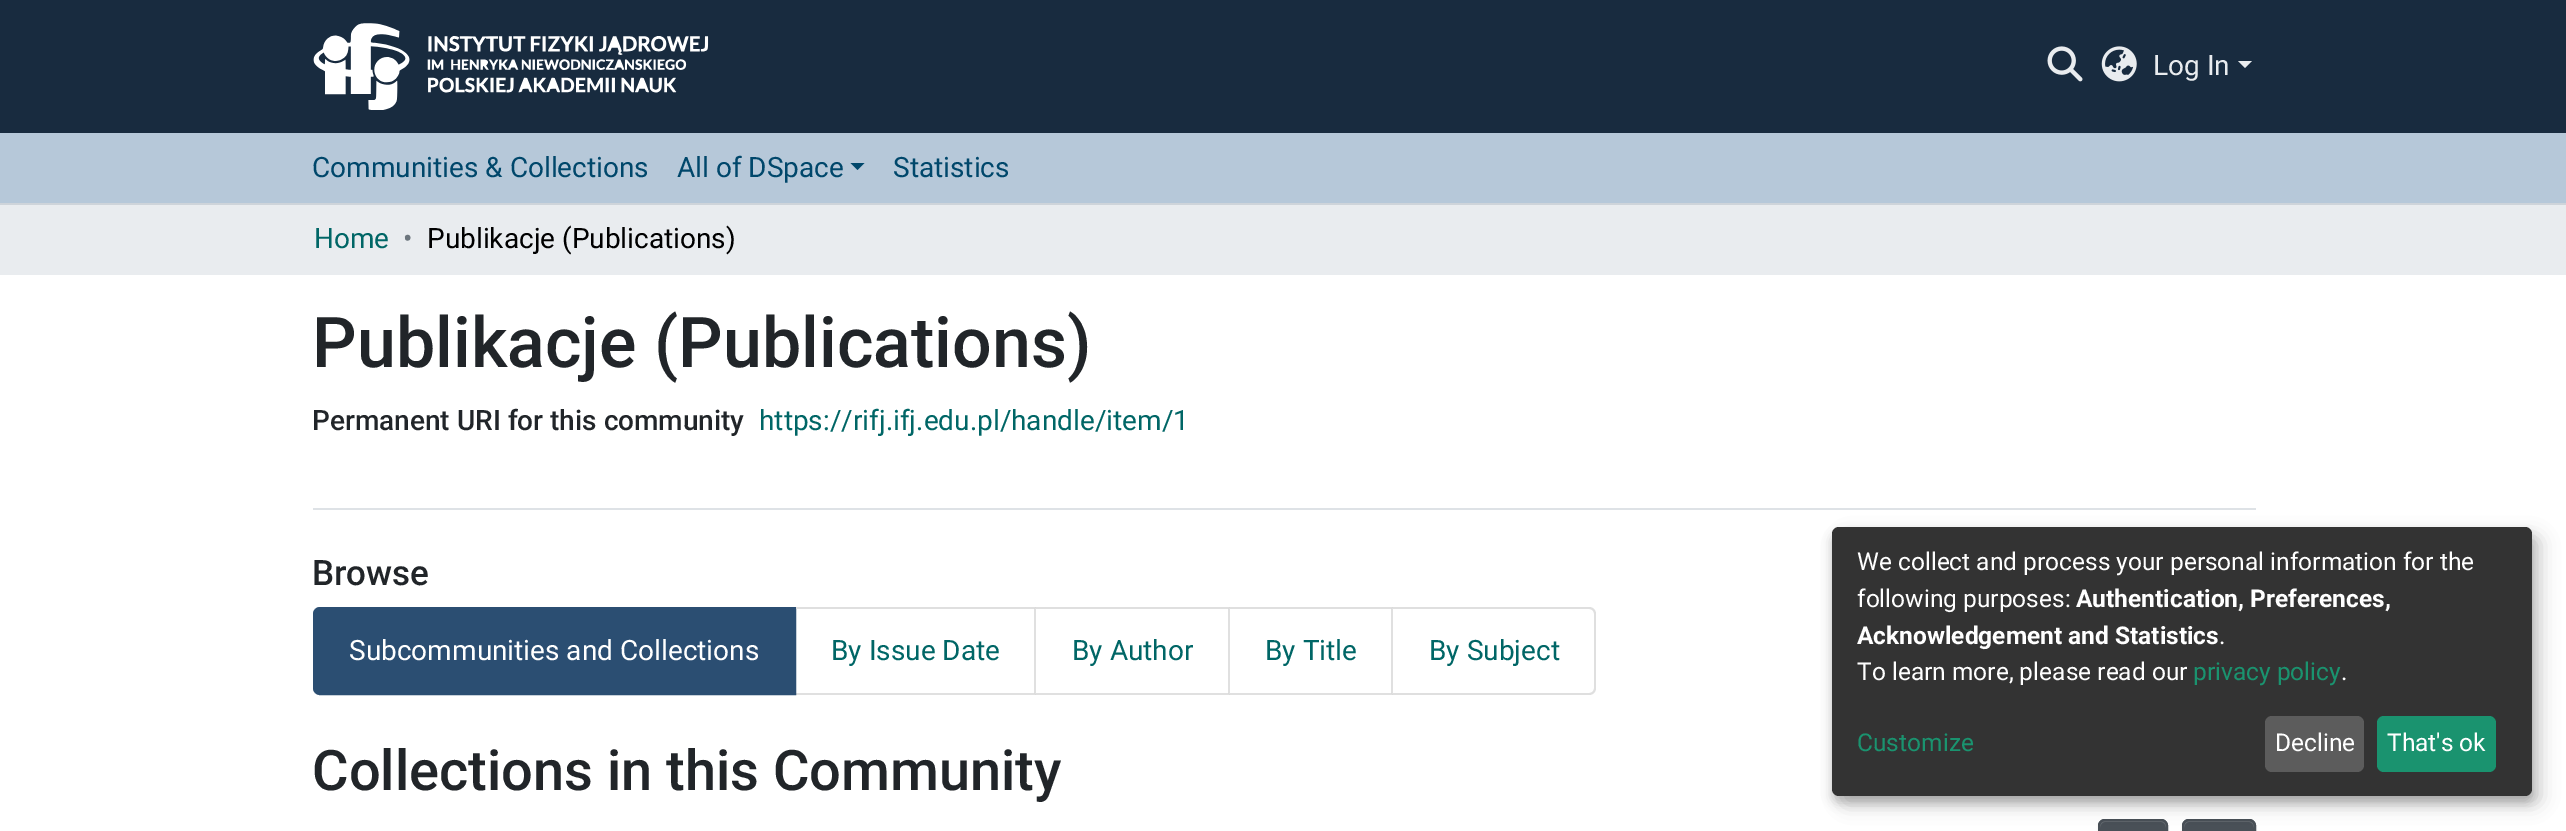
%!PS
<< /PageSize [2566 831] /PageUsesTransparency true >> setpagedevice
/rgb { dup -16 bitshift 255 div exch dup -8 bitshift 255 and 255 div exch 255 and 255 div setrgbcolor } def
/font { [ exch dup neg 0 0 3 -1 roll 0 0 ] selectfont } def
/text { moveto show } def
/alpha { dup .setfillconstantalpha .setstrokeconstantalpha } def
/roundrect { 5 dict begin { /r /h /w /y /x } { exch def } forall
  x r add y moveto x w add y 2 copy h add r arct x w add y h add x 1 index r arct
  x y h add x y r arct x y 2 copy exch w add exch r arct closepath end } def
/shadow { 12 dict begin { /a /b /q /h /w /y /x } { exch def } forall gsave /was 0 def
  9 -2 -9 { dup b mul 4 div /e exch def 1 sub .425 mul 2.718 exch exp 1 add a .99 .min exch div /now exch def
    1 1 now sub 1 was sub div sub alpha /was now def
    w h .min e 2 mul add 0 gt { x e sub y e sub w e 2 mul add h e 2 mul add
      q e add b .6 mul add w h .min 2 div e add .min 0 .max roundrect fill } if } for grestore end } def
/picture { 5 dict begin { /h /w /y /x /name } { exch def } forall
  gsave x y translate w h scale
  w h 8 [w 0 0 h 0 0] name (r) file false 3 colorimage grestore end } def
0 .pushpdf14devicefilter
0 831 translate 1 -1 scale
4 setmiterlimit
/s1 { /Roboto-Regular 28 font 16#E9ECEF rgb } def
/s2 { /Roboto-Regular 28 font 16#00476B rgb } def
/s3 { /Roboto-Regular 28 font 16#006666 rgb } def
/s4 { /Roboto-Regular 28 font 16#6C757D rgb } def
/s5 { /Roboto-Regular 28 font 16#000000 rgb } def
/s6 { /Roboto-Medium 70 font 16#212529 rgb } def
/s7 { /Roboto-Medium 28 font 16#212529 rgb } def
/s8 { /Roboto-Medium 35 font 16#212529 rgb } def
/s9 { /Roboto-Regular 28 font 16#FFFFFF rgb } def
/s10 { /Roboto-Medium 56 font 16#212529 rgb } def
/s11 { /Roboto-Regular 24.5 font 16#FFFFFF rgb } def
/s12 { /Roboto-Bold 24.5 font 16#FFFFFF rgb } def
/s13 { /Roboto-Regular 24.5 font 16#1A936F rgb } def
16#FFFFFF rgb
0 0 2566 831 rectfill
16#CED4DA rgb
0 203 2566 2 rectfill
16#182B3F rgb
0 0 2566 133 rectfill
(pic1.raw) 313 23 396 87 picture
(pic2.raw) 2047 46 36 36 picture
(pic3.raw) 2101 46 36 36 picture
s1
(Log In) 2153 75 text
2238 61 moveto 2252 61 lineto 2245 68 lineto closepath fill
16#B6C8D9 rgb
0 133 2566 70 rectfill
s2
(Communities & Collections) 312 177 text
(All of DSpace) 677 177 text
850.5 163 moveto 864.5 163 lineto 857.5 170 lineto closepath fill
(Statistics) 893 177 text
16#E9ECEF rgb
0 205 2566 70 rectfill
s3
(Home) 314 248 text
s4
(•) 403 248 text
s5
(Publikacje \(Publications\)) 427 248 text
16#DEE2E6 rgb
313 508 1943 2 rectfill
s6
(Publikacje \(Publications\)) 312 367 text
s7
(Permanent URI for this community) 312 430 text
s3
(https://rifj.ifj.edu.pl/handle/item/1) 759 430 text
s8
(Browse) 312 585 text
16#2B4E72 rgb
320 608 moveto 795 608 lineto 795 694 lineto 320 694 lineto 316.5 694 314 691.5 314 688 curveto 314 614 lineto 314 610.5 316.5 608 320 608 curveto closepath gsave fill grestore
2 setlinewidth
stroke
s9
(Subcommunities and Collections) 349 660 text
16#DFDFDF rgb
796 607 moveto 1036 607 lineto 1034 609 lineto 796 609 lineto closepath fill
0.12 alpha
16#000000 rgb
1036 607 moveto 1036 695 lineto 1034 693 lineto 1034 609 lineto closepath fill
1036 695 moveto 796 695 lineto 796 693 lineto 1034 693 lineto closepath fill
1 alpha
s3
(By Issue Date) 831 660 text
16#DFDFDF rgb
1036 607 moveto 1230 607 lineto 1228 609 lineto 1036 609 lineto closepath fill
0.12 alpha
16#000000 rgb
1230 607 moveto 1230 695 lineto 1228 693 lineto 1228 609 lineto closepath fill
1230 695 moveto 1036 695 lineto 1036 693 lineto 1228 693 lineto closepath fill
1 alpha
s3
(By Author) 1072 660 text
16#DFDFDF rgb
1230 607 moveto 1393 607 lineto 1391 609 lineto 1230 609 lineto closepath fill
0.12 alpha
16#000000 rgb
1393 607 moveto 1393 695 lineto 1391 693 lineto 1391 609 lineto closepath fill
1393 695 moveto 1230 695 lineto 1230 693 lineto 1391 693 lineto closepath fill
1 alpha
s3
(By Title) 1265 660 text
16#DFDFDF rgb
1393 607 moveto 1589 607 lineto 1593 607 1596 610 1596 614 curveto 1596 688 lineto 1596 692 1593 695 1589 695 curveto 1393 695 lineto closepath 1393 609 moveto 1589 609 lineto 1592 609 1594 611 1594 614 curveto 1594 688 lineto 1594 691 1592 693 1589 693 curveto 1393 693 lineto closepath eofill
s3
(By Subject) 1429 660 text
s10
(Collections in this Community) 312 790 text
16#000000 rgb
2098 821 70 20 7 1 0.07 shadow
16#495057 rgb
2098 819 70 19 7 roundrect fill
16#646A70 rgb
2105 822 moveto 2161 822 lineto 2164 822 2166 825 2166 828 curveto 2166 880 lineto 2166 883 lineto 2166 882 2167 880 2167 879 curveto 2167 826 lineto 2167 823 2165 821 2162 821 curveto 2105 821 lineto 2102 821 2100 823 2100 826 curveto 2100 828 lineto 2100 825 2102 822 2105 822 curveto closepath fill
16#495057 rgb
2099 820 68 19 6 roundrect stroke
16#000000 rgb
2182 821 74 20 7 1 0.07 shadow
16#495057 rgb
2182 819 74 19 7 roundrect fill
16#646A70 rgb
2189 822 moveto 2249 822 lineto 2252 822 2254 825 2254 828 curveto 2254 819 2247 821 2239 821 curveto 2199 821 lineto 2191 821 2184 819 2184 828 curveto 2184 825 2186 822 2189 822 curveto closepath fill
16#495057 rgb
2183 820 72 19 6 roundrect stroke
16#000000 rgb
1841 536 700 269 7 9 0.19 shadow
1832 534 700 269 7 5 0.2 shadow
16#333333 rgb
1832 527 700 269 7 roundrect fill
s11
(We collect and process your personal information for the) 1857 570 text
(following purposes:) 1857 607 text
s12
(Authentication, Preferences,) 2076 607 text
(Acknowledgement and Statistics) 1857 644 text
s11
(.) 2219 644 text
(To learn more, please read our) 1857 680 text
s13
(privacy policy) 2193 680 text
s11
(.) 2341 680 text
s13
(Customize) 1857 751 text
16#5C5C5C rgb
2265 716 99 56 7 roundrect fill
s11
(Decline) 2275 751 text
16#1A936F rgb
2377 716 119 56 7 roundrect fill
s11
(That's ok) 2387 751 text
.poppdf14devicefilter showpage
